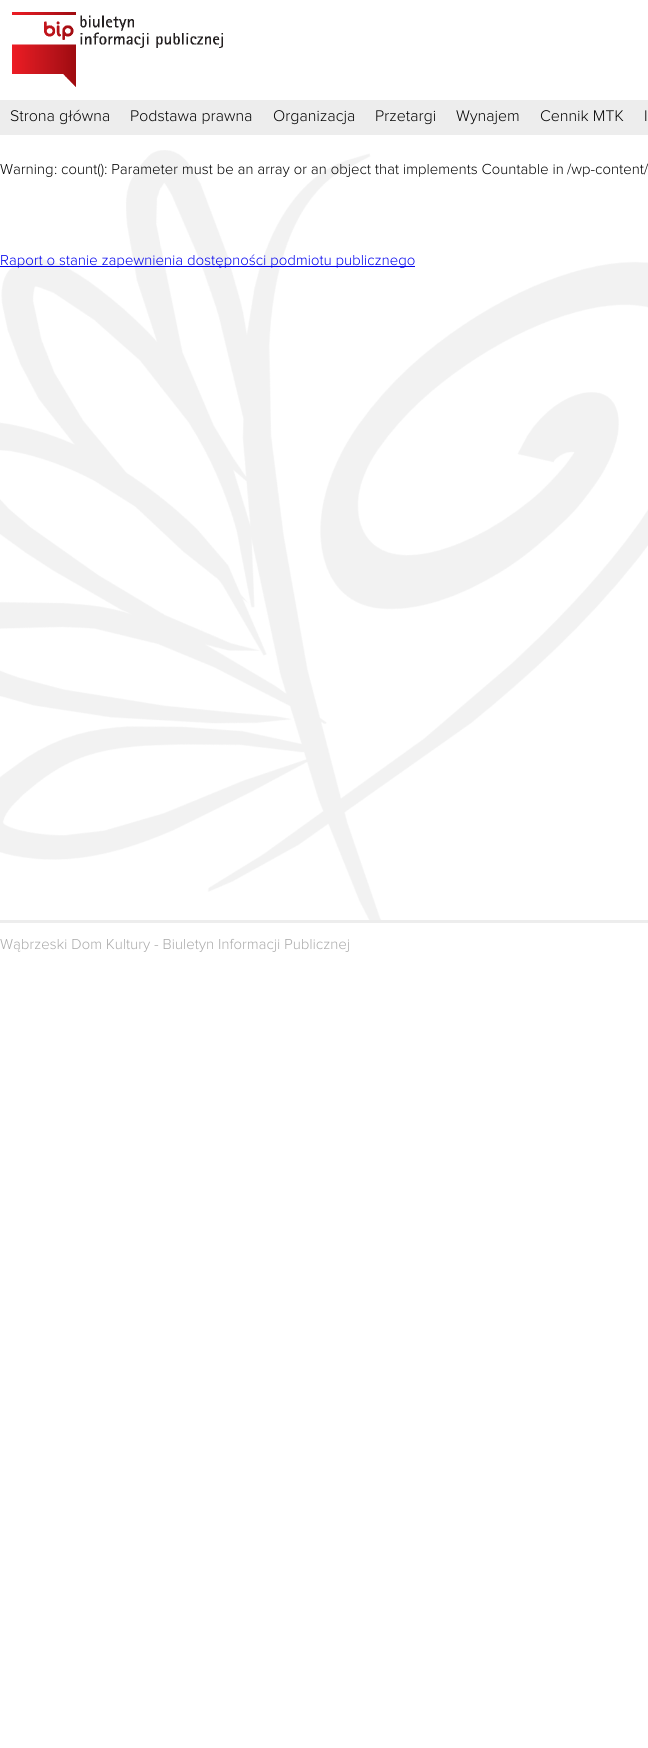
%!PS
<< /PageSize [648 1748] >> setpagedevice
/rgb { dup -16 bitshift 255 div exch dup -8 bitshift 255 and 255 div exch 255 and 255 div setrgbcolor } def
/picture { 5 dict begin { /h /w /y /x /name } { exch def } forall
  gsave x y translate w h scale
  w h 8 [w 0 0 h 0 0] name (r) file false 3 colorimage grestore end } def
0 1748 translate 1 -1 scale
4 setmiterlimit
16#FFFFFF rgb
0 0 648 1748 rectfill
(pic1.raw) 0 150 648 770 picture
(pic2.raw) 12 12 211 75 picture
16#EDEDED rgb
0 100 648 35 rectfill
(pic3.raw) 10 109 99 16 picture
(pic4.raw) 131 110 121 14 picture
(pic5.raw) 273 110 82 15 picture
(pic6.raw) 376 110 59 15 picture
(pic7.raw) 456 110 63 15 picture
(pic8.raw) 540 110 84 12 picture
(pic9.raw) 645 110 2 11 picture
(pic10.raw) 0 164 53 13 picture
(pic11.raw) 55 166 2 9 picture
(pic12.raw) 61 163 502 14 picture
(pic13.raw) 567 163 81 14 picture
16#0000EE rgb
0 266 415 1 rectfill
(pic14.raw) 1 254 414 14 picture
16#EDEDED rgb
0 920 648 3 rectfill
(pic15.raw) 0 938 349 14 picture
showpage
